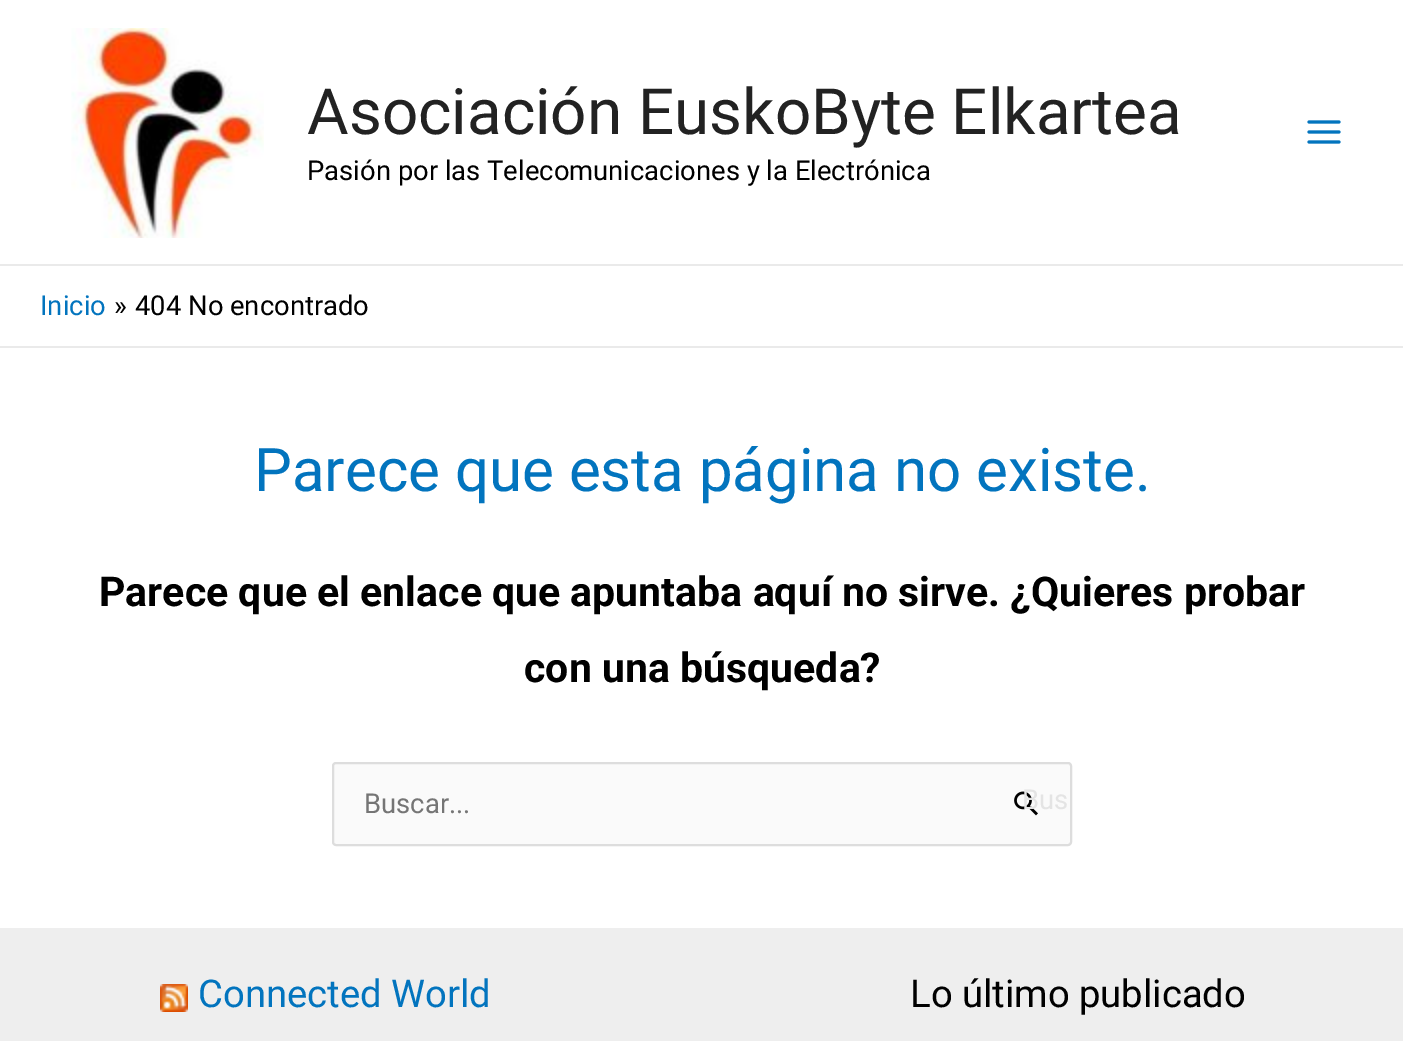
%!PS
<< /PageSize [1403 1041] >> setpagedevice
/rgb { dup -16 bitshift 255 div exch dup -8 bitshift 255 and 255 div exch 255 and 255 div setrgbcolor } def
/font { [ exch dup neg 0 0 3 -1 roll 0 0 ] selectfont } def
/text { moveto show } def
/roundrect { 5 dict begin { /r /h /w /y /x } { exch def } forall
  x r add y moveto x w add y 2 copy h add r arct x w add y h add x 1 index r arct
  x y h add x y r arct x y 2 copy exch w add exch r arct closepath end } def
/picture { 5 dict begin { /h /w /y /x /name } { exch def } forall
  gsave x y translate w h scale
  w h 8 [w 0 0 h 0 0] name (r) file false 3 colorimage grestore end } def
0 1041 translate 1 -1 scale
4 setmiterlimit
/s1 { /Roboto-Regular 63.8 font 16#222222 rgb } def
/s2 { /Roboto-Regular 27.4 font 16#000000 rgb } def
/s3 { /Roboto-Regular 27.4 font 16#0274BE rgb } def
/s4 { /Roboto-Regular 60 font 16#0274BE rgb } def
/s5 { /Roboto-Bold 41.05 font 16#000000 rgb } def
/s6 { /Roboto-Regular 27.4 font 16#E4E4E4 rgb } def
/s7 { /Roboto-Regular 27.4 font 16#757575 rgb } def
/s8 { /Roboto-Regular 38.25 font 16#0274BE rgb } def
/s9 { /Roboto-Regular 38.25 font 16#000000 rgb } def
16#FFFFFF rgb
0 0 1403 1041 rectfill
16#EAEAEA rgb
0 264 1403 2 rectfill
(pic1.raw) 71 28 193 210 picture
s1
(Asociación EuskoByte Elkartea) 307 134 text
s2
(Pasión por las Telecomunicaciones y la Electrónica) 307 180 text
(pic2.raw) 1307 120 34 24 picture
16#EAEAEA rgb
0 346 1403 2 rectfill
s3
(Inicio) 40 315 text
s2
(») 114 315 text
(404 No encontrado) 135 315 text
s4
(Parece que esta página no existe.) 254 491 text
s5
(Parece que el enlace que apuntaba aquí no sirve. ¿Quieres probar) 99 606 text
(con una búsqueda?) 524 682 text
16#FAFAFA rgb
333 763 738 82 3 roundrect gsave fill grestore
16#DDDDDD rgb
2 setlinewidth
stroke
(pic3.raw) 1014 791 24 25 picture
s6
(Bus) 1022 809 text
s7
(Buscar...) 364 813 text
16#EEEEEE rgb
0 928 1403 113 rectfill
(pic4.raw) 160 984 28 28 picture
s8
(Connected World) 198 1007 text
s9
(Lo último publicado) 910 1007 text
showpage
